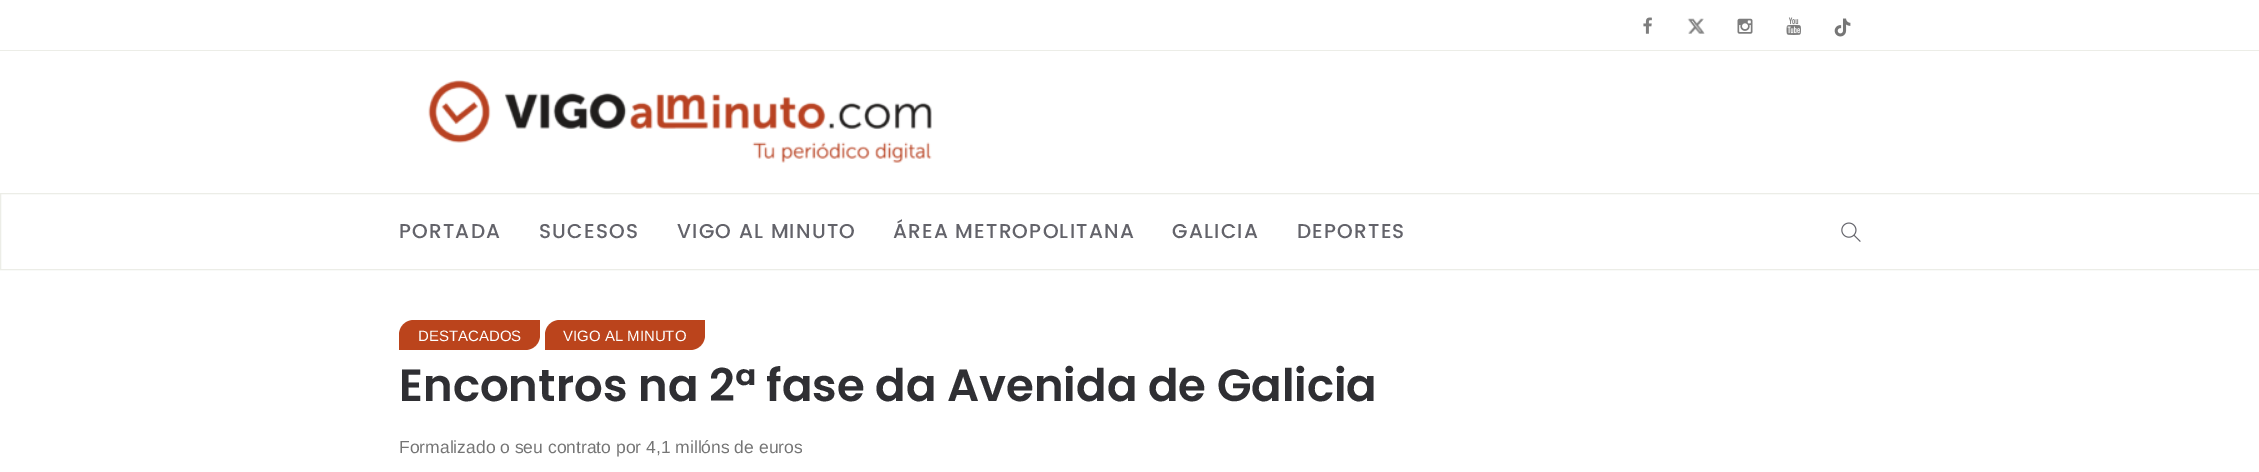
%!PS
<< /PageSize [2259 472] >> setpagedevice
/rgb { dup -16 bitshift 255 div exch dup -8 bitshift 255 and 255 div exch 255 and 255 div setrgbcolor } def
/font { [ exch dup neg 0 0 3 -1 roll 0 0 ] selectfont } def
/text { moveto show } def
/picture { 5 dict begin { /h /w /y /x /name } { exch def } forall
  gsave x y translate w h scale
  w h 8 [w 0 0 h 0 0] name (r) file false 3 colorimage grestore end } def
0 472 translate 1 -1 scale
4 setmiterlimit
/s1 { /LiberationSans-Regular 15 font 16#FFFFFF rgb } def
/s2 { /Poppins-SemiBold 45 font 16#2F2F33 rgb } def
/s3 { /LiberationSans-Regular 17.5 font 16#757575 rgb } def
16#FFFFFF rgb
0 0 2259 472 rectfill
16#ECEDE7 rgb
0 50 2259 1 rectfill
(pic1.raw) 1643 17 9 17 picture
(pic2.raw) 1687 18 18 16 picture
(pic3.raw) 1737 18 16 16 picture
(pic4.raw) 1786 17 15 18 picture
(pic5.raw) 1834 18 17 19 picture
(pic6.raw) 428 80 504 83 picture
0.5 193.5 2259 76 rectstroke
/Poppins-Medium 20 font
16#63636A rgb
399 238 moveto 1.25 0 (PORTADA) ashow
539 238 moveto 1.25 0 (SUCESOS) ashow
677 238 moveto 1.25 0 (VIGO AL MINUTO) ashow
893 238 moveto 1.25 0 (ÁREA METROPOLITANA) ashow
1172 238 moveto 1.25 0 (GALICIA) ashow
1297 238 moveto 1.25 0 (DEPORTES) ashow
(pic7.raw) 1841 222 20 20 picture
16#BB441C rgb
414 320 moveto 540 320 lineto 540 335 lineto 540 343.5 533.5 350 525 350 curveto 399 350 lineto 399 335 lineto 399 326.5 405.5 320 414 320 curveto closepath fill
s1
(DESTACADOS) 418 341 text
16#BB441C rgb
560 320 moveto 705 320 lineto 705 335 lineto 705 343.5 698.5 350 690 350 curveto 545 350 lineto 545 335 lineto 545 326.5 551.5 320 560 320 curveto closepath fill
s1
(VIGO AL MINUTO) 563 341 text
s2
(Encontros na 2ª fase da Avenida de Galicia) 399 401 text
s3
(Formalizado o seu contrato por 4,1 millóns de euros) 399 453 text
showpage
